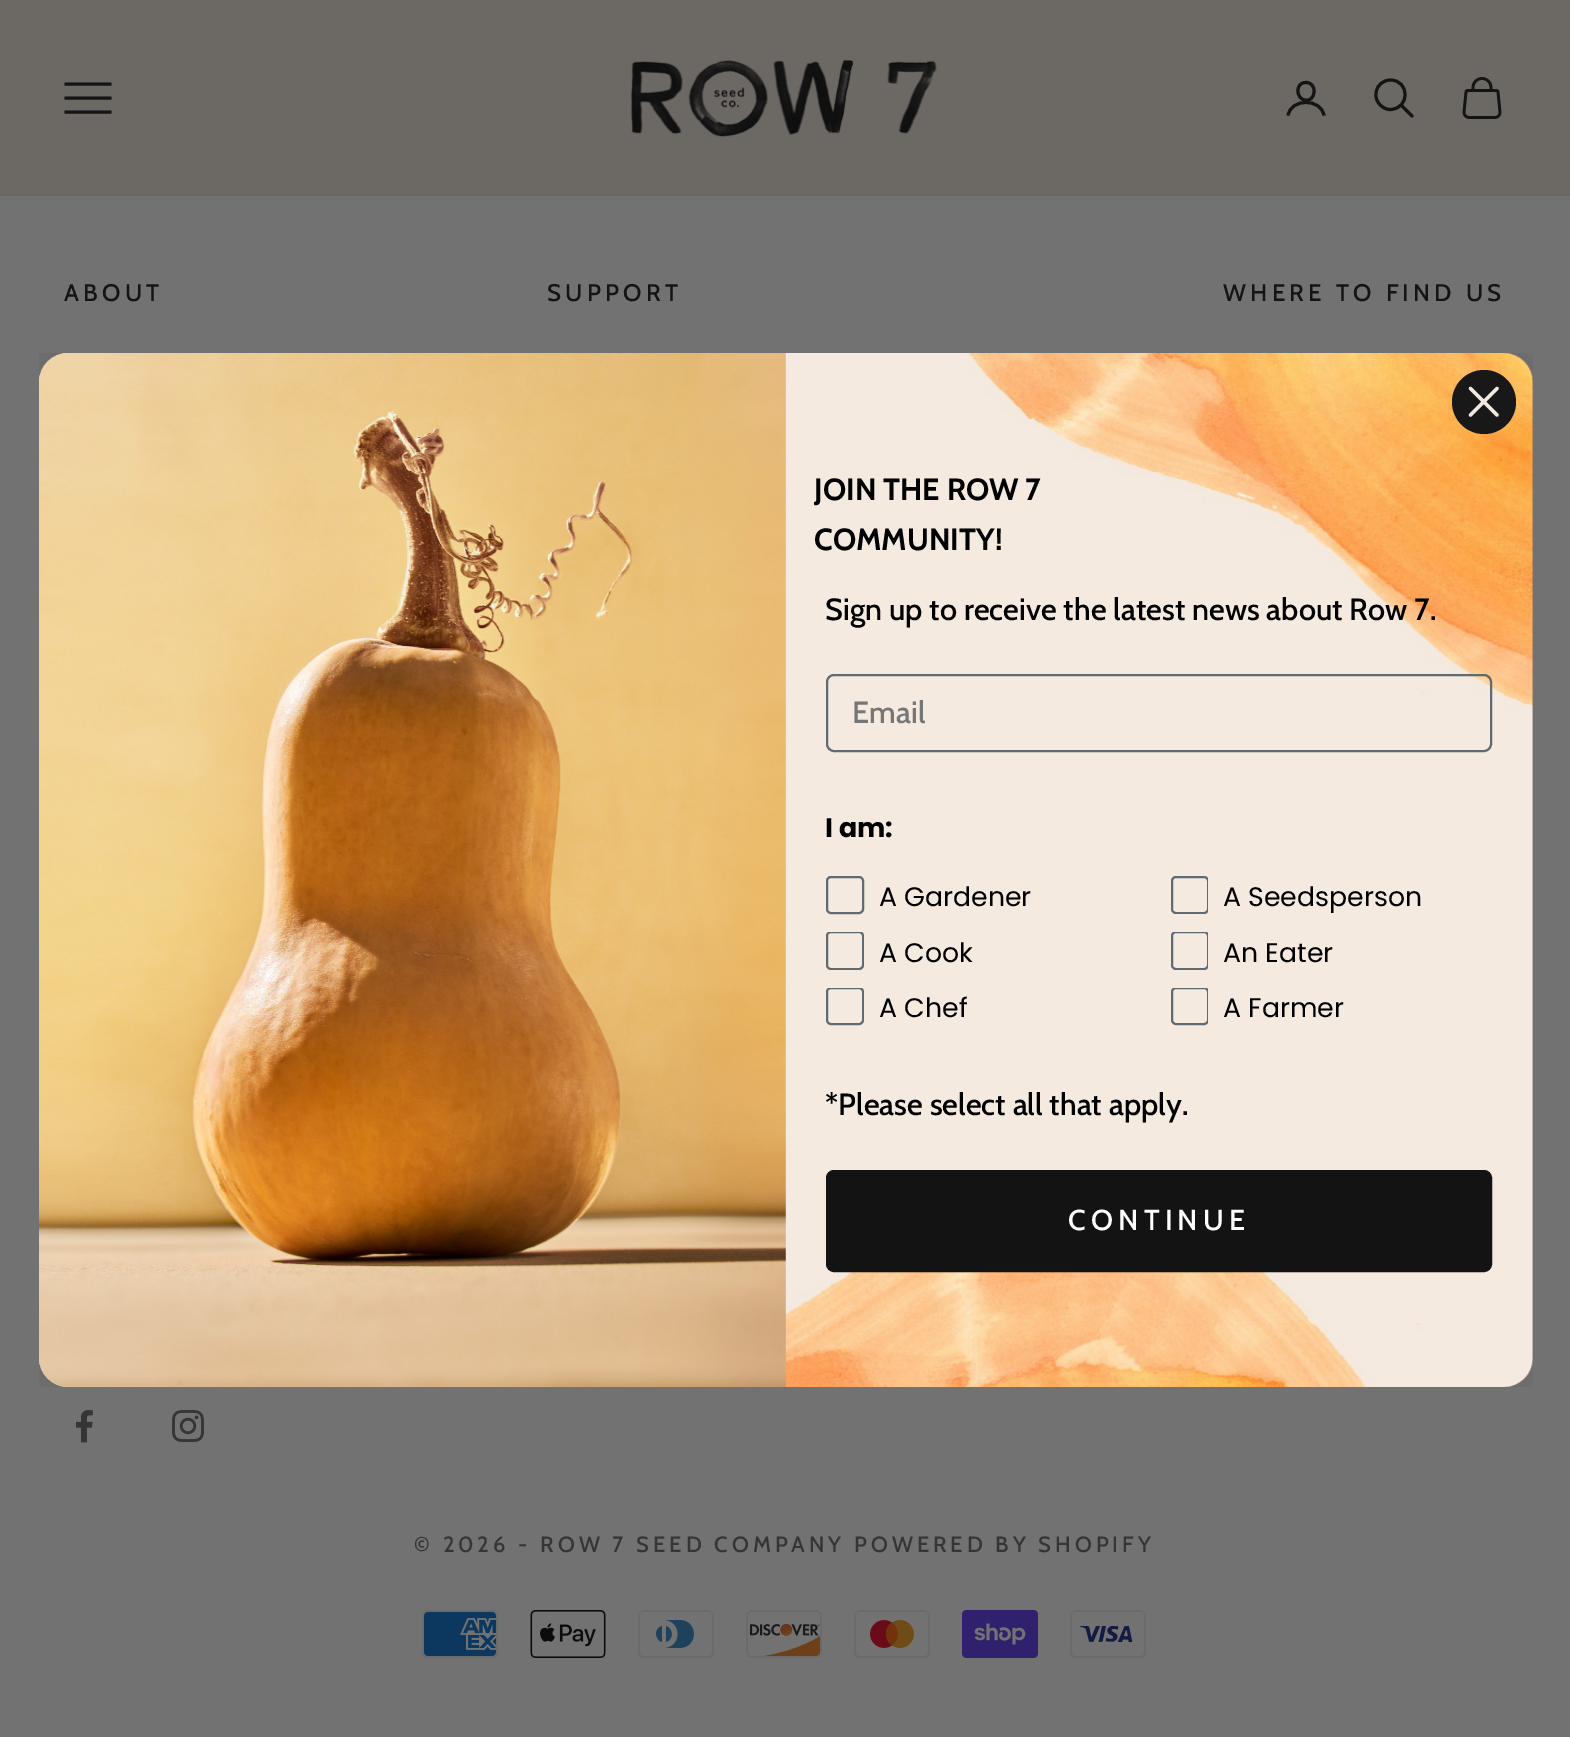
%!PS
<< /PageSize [1570 1737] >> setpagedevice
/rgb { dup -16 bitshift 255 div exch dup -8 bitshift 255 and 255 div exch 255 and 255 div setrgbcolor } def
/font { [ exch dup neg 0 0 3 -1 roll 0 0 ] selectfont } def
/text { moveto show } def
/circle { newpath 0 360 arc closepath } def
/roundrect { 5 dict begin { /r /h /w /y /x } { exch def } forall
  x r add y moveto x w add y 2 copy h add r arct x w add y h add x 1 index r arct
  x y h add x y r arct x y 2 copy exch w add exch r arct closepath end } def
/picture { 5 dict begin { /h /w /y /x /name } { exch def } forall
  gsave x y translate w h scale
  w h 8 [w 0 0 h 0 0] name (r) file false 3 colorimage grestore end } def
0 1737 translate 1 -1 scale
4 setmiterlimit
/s1 { /Cabin-Bold 30.6 font 16#000000 rgb } def
/s2 { /Cabin-Medium 30.6 font 16#000000 rgb } def
/s3 { /Cabin-Medium 30.6 font 16#767676 rgb } def
/s4 { /Poppins-Bold 26.75 font 16#000000 rgb } def
/s5 { /Poppins-Regular 26.75 font 16#000000 rgb } def
16#727272 rgb
0 0 1570 1737 rectfill
16#6C6864 rgb
0 0 1570 196 rectfill
16#141414 rgb
3 setlinewidth
2 setlinecap
66 112 moveto 110 112 lineto 66 98 moveto 110 98 lineto 66 84 moveto 110 84 lineto stroke
(pic1.raw) 630 59 307 79 picture
1 setlinecap
1 setlinejoin
1314 91.5 moveto 1313.5 105 1296.5 102 1298 89.5 curveto 1299 79 1315 80.5 1314 91.5 curveto closepath stroke
0 setlinecap
0 setlinejoin
1288 115.5 moveto 1291 98 1321 98 1324 115.5 curveto stroke
1390.5 80 moveto 1375.5 80 1370 100 1383.5 107.5 curveto 1385.5 109 1388 109.5 1390.5 109.5 curveto 1410.5 108.5 1409.5 80 1390.5 80 curveto closepath stroke
1 setlinecap
1401.5 105.5 moveto 1412 116 lineto stroke
(pic2.raw) 1462 77 40 42 picture
/Cabin-Medium 24 font
64 301 moveto 4.3 0 (ABOUT) ashow
547 301 moveto 4.3 0 (SUPPORT) ashow
1223 301 moveto 4.3 0 (WHERE TO FIND US) ashow
(pic3.raw) 76 1410 17 33 picture
(pic4.raw) 172 1410 32 32 picture
/Cabin-Medium 22 font
16#353535 rgb
414 1552 moveto 3.95 0 (© 2026 - ROW 7 SEED COMPANY POWERED BY SHOPIFY) ashow
(pic5.raw) 422 1610 76 48 picture
(pic6.raw) 530 1610 76 48 picture
(pic7.raw) 638 1610 76 48 picture
(pic8.raw) 746 1610 76 48 picture
(pic9.raw) 854 1610 76 48 picture
(pic10.raw) 962 1610 76 48 picture
(pic11.raw) 1070 1610 76 48 picture
(pic12.raw) 39 353 1494 1034 picture
16#181818 rgb
1484 402 32 circle fill
16#F1E8DF rgb
3.4 setlinewidth
1 setlinejoin
1470.5 388.5 moveto 1497 415 lineto 1470.5 415 moveto 1497 388.5 lineto closepath stroke
(pic13.raw) 39 353 747 1034 picture
s1
(JOIN THE ROW 7) 814 500 text
(COMMUNITY!) 814 550 text
s2
(Sign up to receive the latest news about Row 7.) 825 620 text
16#606A72 rgb
2 setlinewidth
0 setlinecap
0 setlinejoin
827 675 664 76 7 roundrect stroke
s3
(Email) 852 723 text
s4
(I am:) 825 837 text
16#606A72 rgb
827 877 36 36 4 roundrect stroke
s5
(A Gardener) 879 906 text
gsave
826 932 38 38 rectclip
16#606A72 rgb
827 932 36 37 4 roundrect stroke
grestore
(A Cook) 879 962 text
gsave
826 988 38 38 rectclip
16#606A72 rgb
827 988 36 36 4 roundrect stroke
grestore
(A Chef) 879 1017 text
gsave
1170 876 38 38 rectclip
16#606A72 rgb
1172 877 36 36 4 roundrect stroke
grestore
(A Seedsperson) 1223 906 text
gsave
1170 932 38 38 rectclip
16#606A72 rgb
1172 932 36 37 4 roundrect stroke
grestore
(An Eater) 1223 962 text
gsave
1170 988 38 38 rectclip
16#606A72 rgb
1172 988 36 36 4 roundrect stroke
grestore
(A Farmer) 1223 1017 text
s2
(*Please select all that apply.) 825 1115 text
gsave
826 1170 666 102 8 roundrect clip newpath
16#131313 rgb
828 1172 662 98 rectfill
grestore
16#131313 rgb
827 1171 664 100 7 roundrect stroke
/Cabin-Medium 28.75 font
16#FFFFFF rgb
1068 1230 moveto 5.25 0 (CONTINUE) ashow
showpage
